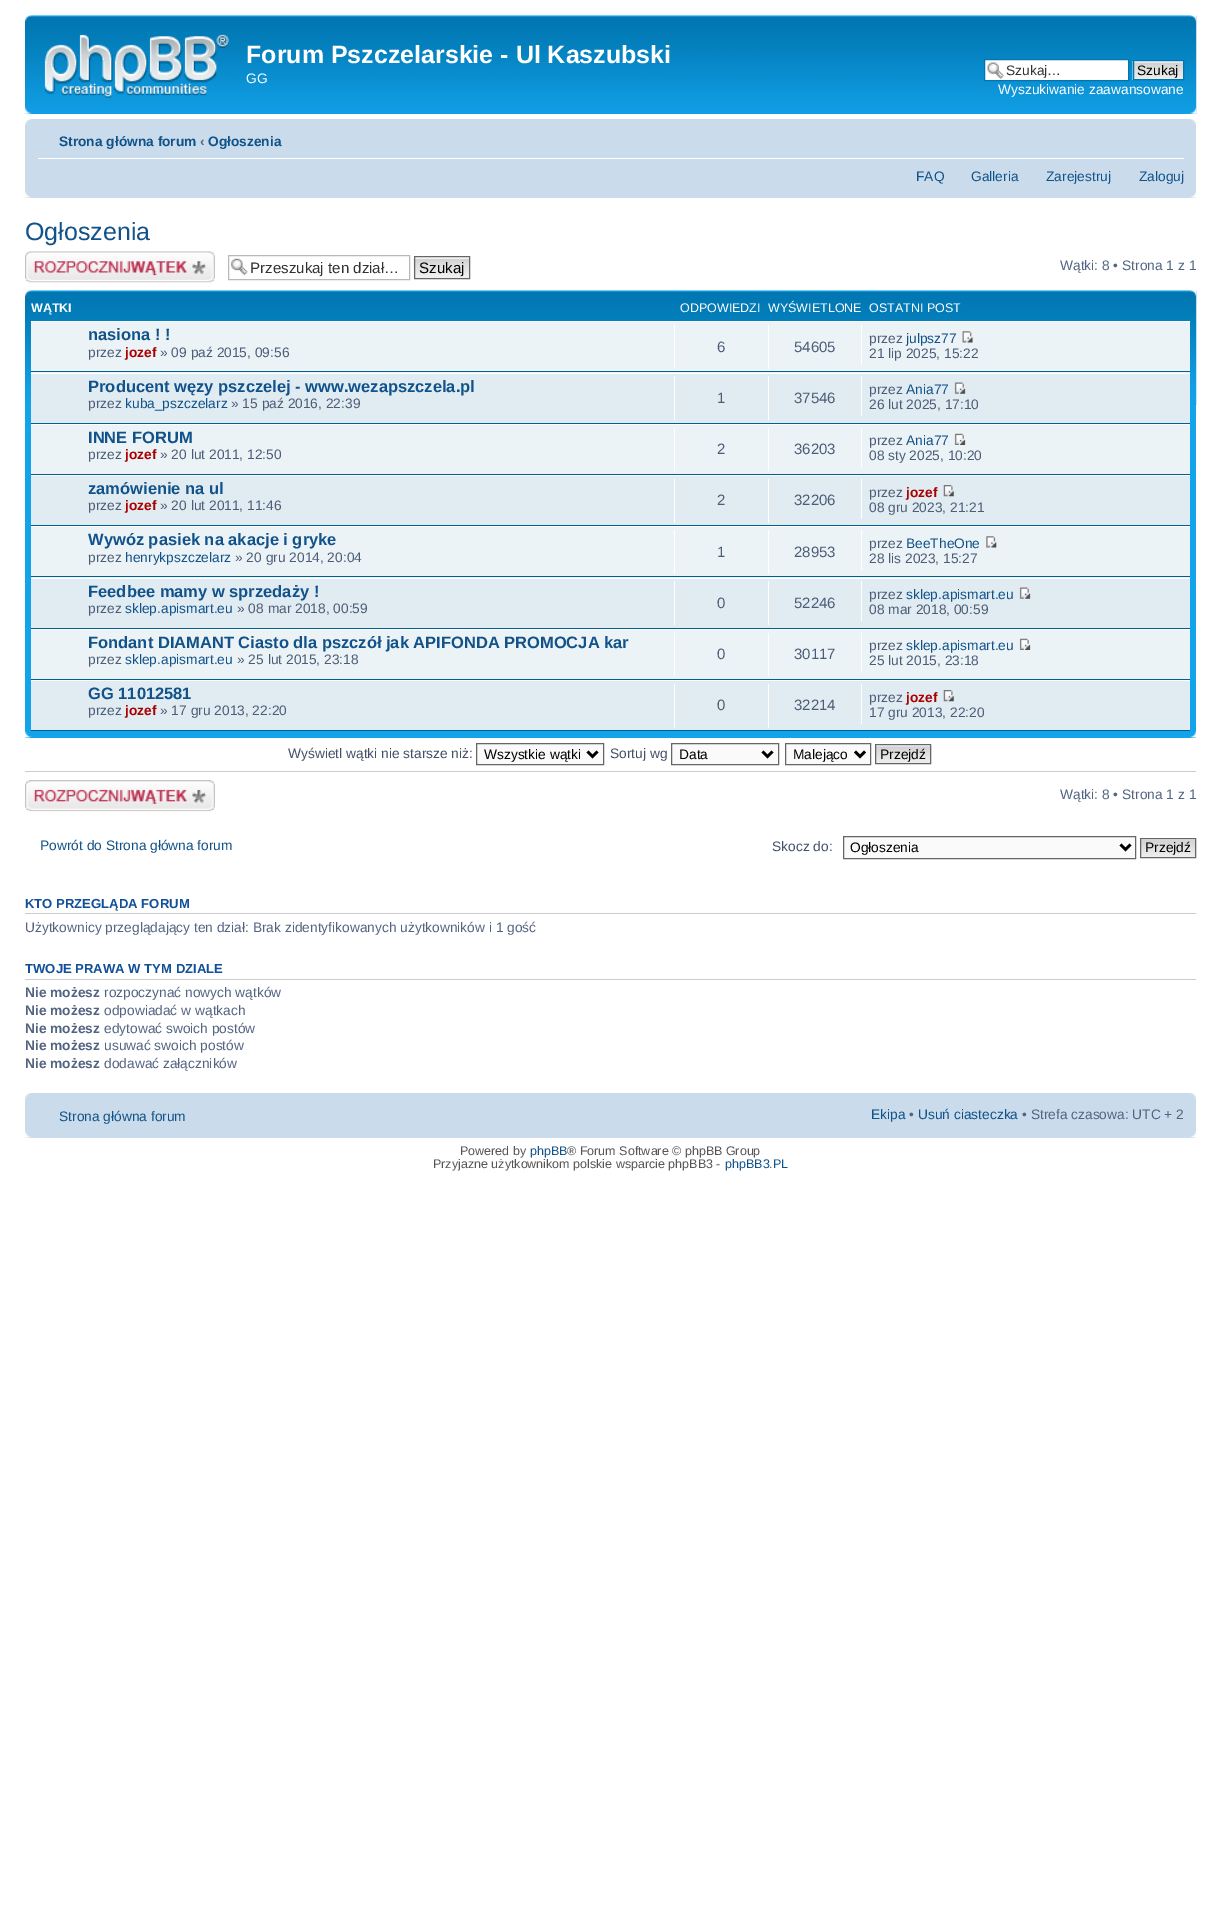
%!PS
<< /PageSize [1221 1906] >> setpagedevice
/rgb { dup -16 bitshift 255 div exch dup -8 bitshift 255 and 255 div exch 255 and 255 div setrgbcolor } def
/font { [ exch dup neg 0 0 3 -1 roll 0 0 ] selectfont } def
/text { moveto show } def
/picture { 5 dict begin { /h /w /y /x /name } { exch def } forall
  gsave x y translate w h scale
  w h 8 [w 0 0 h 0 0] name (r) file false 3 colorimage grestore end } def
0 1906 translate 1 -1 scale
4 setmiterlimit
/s1 { /LiberationSans-Bold 25 font 16#FFFFFF rgb } def
/s2 { /LiberationSans-Regular 13.75 font 16#FFFFFF rgb } def
/s3 { /LiberationSans-Regular 13.75 font 16#333333 rgb } def
/s4 { /LiberationSans-Regular 13.75 font 16#000000 rgb } def
/s5 { /LiberationSans-Bold 13.75 font 16#105289 rgb } def
/s6 { /LiberationSans-Bold 13.75 font 16#536482 rgb } def
/s7 { /LiberationSans-Regular 13.75 font 16#105289 rgb } def
/s8 { /LiberationSans-Regular 25 font 16#105289 rgb } def
/s9 { /LiberationSans-Regular 15.1 font 16#333333 rgb } def
/s10 { /LiberationSans-Regular 15.1 font 16#000000 rgb } def
/s11 { /LiberationSans-Regular 13.75 font 16#536482 rgb } def
/s12 { /LiberationSans-Bold 12.5 font 16#FFFFFF rgb } def
/s13 { /LiberationSans-Regular 12.5 font 16#FFFFFF rgb } def
/s14 { /LiberationSans-Bold 16.5 font 16#105289 rgb } def
/s15 { /LiberationSans-Regular 13.75 font 16#4C5D77 rgb } def
/s16 { /LiberationSans-Bold 13.75 font 16#AA0000 rgb } def
/s17 { /LiberationSans-Regular 15 font 16#4C5D77 rgb } def
/s18 { /LiberationSans-Regular 13.75 font 16#425067 rgb } def
/s19 { /LiberationSans-Bold 13.1 font 16#115098 rgb } def
/s20 { /LiberationSans-Regular 12.5 font 16#555555 rgb } def
/s21 { /LiberationSans-Regular 12.5 font 16#105289 rgb } def
16#FFFFFF rgb
0 0 1221 1906 rectfill
(pic1.raw) 25 15 1172 99 picture
(pic2.raw) 25 15 7 7 picture
(pic3.raw) 1189 15 8 7 picture
(pic4.raw) 44 34 185 64 picture
s1
(Forum Pszczelarskie - Ul Kaszubski) 246 63 text
s2
(GG) 246 83 text
985 60 143 20 rectfill
(pic5.raw) 987 62 17 17 picture
16#0075B0 rgb
984.5 59.5 144 21 rectstroke
s3
(Szukaj…) 1006 75 text
(pic6.raw) 1132 61 51 19 picture
16#0075B0 rgb
1133.5 60.5 50 19 rectstroke
s4
(Szukaj) 1137 75 text
s2
(Wyszukiwanie zaawansowane) 998 94 text
(pic7.raw) 25 107 7 7 picture
(pic8.raw) 1190 107 7 7 picture
16#CADCEB rgb
25 119 1171 79 rectfill
(pic9.raw) 25 119 7 6 picture
(pic10.raw) 1190 119 6 6 picture
16#FFFFFF rgb
38 158 1146 1 rectfill
s5
(Strona główna forum) 59 146 text
s6
(‹) 200 146 text
s5
(Ogłoszenia) 208 146 text
s7
(FAQ) 916 181 text
(Galleria) 971 181 text
(Zarejestruj) 1046 181 text
(Zaloguj) 1139 181 text
(pic11.raw) 25 191 6 7 picture
(pic12.raw) 1190 191 6 7 picture
s8
(Ogłoszenia) 25 240 text
(pic13.raw) 25 251 190 32 picture
(pic14.raw) 231 258 17 17 picture
16#B4BAC0 rgb
228.5 255.5 181 24 rectstroke
s9
(Przeszukaj ten dział…) 250 273 text
16#FAFAFA rgb
415 257 54 1 rectfill
(pic15.raw) 413 258 56 21 picture
16#666666 rgb
414.5 256.5 55 22 rectstroke
s10
(Szukaj) 419 273 text
s11
(Wątki: 8 • Strona 1 z 1) 1060 270 text
16#12A3EB rgb
25 405 1171 333 rectfill
(pic16.raw) 25 290 1172 115 picture
(pic17.raw) 25 290 7 7 picture
(pic18.raw) 1189 290 8 7 picture
s12
(WĄTKI) 31 312 text
s13
(ODPOWIEDZI) 680 312 text
(WYŚWIETLONE) 768 312 text
(OSTATNI POST) 869 312 text
16#ECF3F7 rgb
31 322 1159 51 rectfill
16#FFFFFF rgb
31 321 1159 1 rectfill
16#00608F rgb
31 371 1159 1 rectfill
s14
(nasiona ! !) 88 340 text
s15
(przez) 88 357 text
s16
(jozef) 125 357 text
s15
(» 09 paź 2015, 09:56) 160 357 text
16#FFFFFF rgb
674 325 1 44 rectfill
s17
(6) 717 352 text
16#FFFFFF rgb
768 325 1 44 rectfill
s17
(54605) 794 352 text
16#FFFFFF rgb
861 325 1 40 rectfill
s15
(przez) 869 343 text
s7
(julpsz77) 906 343 text
(pic19.raw) 962 331 11 12 picture
s15
(21 lip 2025, 15:22) 869 358 text
16#E1EBF2 rgb
31 374 1159 49 rectfill
16#FFFFFF rgb
31 373 1159 1 rectfill
16#00608F rgb
31 423 1159 1 rectfill
s14
(Producent węzy pszczelej - www.wezapszczela.pl) 88 392 text
s15
(przez) 88 408 text
s7
(kuba_pszczelarz) 125 408 text
s15
(» 15 paź 2016, 22:39) 231 408 text
16#FFFFFF rgb
674 376 1 44 rectfill
s17
(1) 717 403 text
16#FFFFFF rgb
768 376 1 44 rectfill
s17
(37546) 794 403 text
16#FFFFFF rgb
861 376 1 40 rectfill
s15
(przez) 869 394 text
s7
(Ania77) 906 394 text
(pic20.raw) 954 382 12 12 picture
s15
(26 lut 2025, 17:10) 869 409 text
16#ECF3F7 rgb
31 425 1159 49 rectfill
16#FFFFFF rgb
31 424 1159 1 rectfill
16#00608F rgb
31 474 1159 1 rectfill
s14
(INNE FORUM) 88 443 text
s15
(przez) 88 459 text
s16
(jozef) 125 459 text
s15
(» 20 lut 2011, 12:50) 160 459 text
16#FFFFFF rgb
674 428 1 43 rectfill
s17
(2) 717 454 text
16#FFFFFF rgb
768 428 1 43 rectfill
s17
(36203) 794 454 text
16#FFFFFF rgb
861 428 1 40 rectfill
s15
(przez) 869 445 text
s7
(Ania77) 906 445 text
(pic21.raw) 954 433 12 12 picture
s15
(08 sty 2025, 10:20) 869 460 text
16#E1EBF2 rgb
31 476 1159 49 rectfill
16#FFFFFF rgb
31 475 1159 1 rectfill
16#00608F rgb
31 525 1159 1 rectfill
s14
(zamówienie na ul) 88 494 text
s15
(przez) 88 510 text
s16
(jozef) 125 510 text
s15
(» 20 lut 2011, 11:46) 160 510 text
16#FFFFFF rgb
674 479 1 44 rectfill
s17
(2) 717 505 text
16#FFFFFF rgb
768 479 1 44 rectfill
s17
(32206) 794 505 text
16#FFFFFF rgb
861 479 1 40 rectfill
s15
(przez) 869 497 text
s16
(jozef) 906 497 text
(pic22.raw) 943 485 11 12 picture
s15
(08 gru 2023, 21:21) 869 512 text
16#ECF3F7 rgb
31 527 1159 51 rectfill
16#FFFFFF rgb
31 526 1159 1 rectfill
16#00608F rgb
31 576 1159 1 rectfill
s14
(Wywóz pasiek na akacje i gryke) 88 545 text
s15
(przez) 88 562 text
s7
(henrykpszczelarz) 125 562 text
s15
(» 20 gru 2014, 20:04) 235 562 text
16#FFFFFF rgb
674 530 1 44 rectfill
s17
(1) 717 557 text
16#FFFFFF rgb
768 530 1 44 rectfill
s17
(28953) 794 557 text
16#FFFFFF rgb
861 530 1 40 rectfill
s15
(przez) 869 548 text
s7
(BeeTheOne) 906 548 text
(pic23.raw) 986 536 11 12 picture
s15
(28 lis 2023, 15:27) 869 563 text
16#E1EBF2 rgb
31 579 1159 49 rectfill
16#FFFFFF rgb
31 578 1159 1 rectfill
16#00608F rgb
31 628 1159 1 rectfill
s14
(Feedbee mamy w sprzedaży !) 88 597 text
s15
(przez) 88 613 text
s7
(sklep.apismart.eu) 125 613 text
s15
(» 08 mar 2018, 00:59) 237 613 text
16#FFFFFF rgb
674 581 1 44 rectfill
s17
(0) 717 608 text
16#FFFFFF rgb
768 581 1 44 rectfill
s17
(52246) 794 608 text
16#FFFFFF rgb
861 581 1 40 rectfill
s15
(przez) 869 599 text
s7
(sklep.apismart.eu) 906 599 text
(pic24.raw) 1019 587 12 12 picture
s15
(08 mar 2018, 00:59) 869 614 text
16#ECF3F7 rgb
31 630 1159 49 rectfill
16#FFFFFF rgb
31 629 1159 1 rectfill
16#00608F rgb
31 679 1159 1 rectfill
s14
(Fondant DIAMANT Ciasto dla pszczół jak APIFONDA PROMOCJA kar) 88 648 text
s15
(przez) 88 664 text
s7
(sklep.apismart.eu) 125 664 text
s15
(» 25 lut 2015, 23:18) 237 664 text
16#FFFFFF rgb
674 633 1 43 rectfill
s17
(0) 717 659 text
16#FFFFFF rgb
768 633 1 43 rectfill
s17
(30117) 794 659 text
16#FFFFFF rgb
861 633 1 40 rectfill
s15
(przez) 869 650 text
s7
(sklep.apismart.eu) 906 650 text
(pic25.raw) 1019 638 12 12 picture
s15
(25 lut 2015, 23:18) 869 665 text
16#E1EBF2 rgb
31 681 1159 49 rectfill
16#FFFFFF rgb
31 680 1159 1 rectfill
16#00608F rgb
31 730 1159 1 rectfill
s14
(GG 11012581) 88 699 text
s15
(przez) 88 715 text
s16
(jozef) 125 715 text
s15
(» 17 gru 2013, 22:20) 160 715 text
16#FFFFFF rgb
674 684 1 44 rectfill
s17
(0) 717 710 text
16#FFFFFF rgb
768 684 1 44 rectfill
s17
(32214) 794 710 text
16#FFFFFF rgb
861 684 1 40 rectfill
s15
(przez) 869 702 text
s16
(jozef) 906 702 text
(pic22.raw) 943 690 11 12 picture
s15
(17 gru 2013, 22:20) 869 717 text
(pic26.raw) 25 731 7 7 picture
(pic27.raw) 1190 731 6 7 picture
s18
(Wyświetl wątki nie starsze niż:) 288 758 text
16#FAFAFA rgb
476.5 743.5 moveto 603.5 743.5 lineto 603.5 764.5 lineto 476.5 764.5 lineto closepath gsave fill grestore
16#666666 rgb
stroke
16#000000 rgb
2.5 setlinewidth
587.5 751.5 moveto 592.5 756.5 lineto 597.5 751.5 lineto stroke
(Wszystkie wątki) 484 759 text
s18
(Sortuj wg) 610 758 text
16#FAFAFA rgb
671.5 743.5 moveto 778.5 743.5 lineto 778.5 764.5 lineto 671.5 764.5 lineto closepath gsave fill grestore
16#666666 rgb
1 setlinewidth
stroke
16#000000 rgb
2.5 setlinewidth
762.5 751.5 moveto 767.5 756.5 lineto 772.5 751.5 lineto stroke
(Data) 679 759 text
16#FAFAFA rgb
785.5 743.5 moveto 870.5 743.5 lineto 870.5 764.5 lineto 785.5 764.5 lineto closepath gsave fill grestore
16#666666 rgb
1 setlinewidth
stroke
16#000000 rgb
2.5 setlinewidth
855 751.5 moveto 860 756.5 lineto 865 751.5 lineto stroke
(Malejąco) 793 759 text
(pic28.raw) 876 745 56 19 picture
16#666666 rgb
1 setlinewidth
875.5 744.5 55 19 rectstroke
s4
(Przejdź) 880 759 text
16#CCCCCC rgb
25 771 1171 1 rectfill
(pic29.raw) 25 780 190 32 picture
s11
(Wątki: 8 • Strona 1 z 1) 1060 799 text
s7
(Powrót do Strona główna forum) 40 850 text
s18
(Skocz do:) 772 851 text
16#FAFAFA rgb
843.5 836.5 moveto 1135.5 836.5 lineto 1135.5 858.5 lineto 843.5 858.5 lineto closepath gsave fill grestore
16#666666 rgb
stroke
16#000000 rgb
2.5 setlinewidth
1120.5 844.5 moveto 1125.5 849.5 lineto 1130.5 844.5 lineto stroke
(Ogłoszenia) 850 852 text
16#FAFAFA rgb
1141 839 54 1 rectfill
(pic30.raw) 1141 840 56 18 picture
16#666666 rgb
1 setlinewidth
1140.5 838.5 55 19 rectstroke
s4
(Przejdź) 1145 852 text
16#CCCCCC rgb
25 913 1171 1 rectfill
s19
(KTO PRZEGLĄDA FORUM) 25 908 text
s11
(Użytkownicy przeglądający ten dział: Brak zidentyfikowanych użytkowników i 1 gość) 25 932 text
16#CCCCCC rgb
25 979 1171 1 rectfill
s19
(TWOJE PRAWA W TYM DZIALE) 25 973 text
s6
(Nie możesz) 25 997 text
s11
(rozpoczynać nowych wątków) 104 997 text
s6
(Nie możesz) 25 1015 text
s11
(odpowiadać w wątkach) 104 1015 text
s6
(Nie możesz) 25 1033 text
s11
(edytować swoich postów) 104 1033 text
s6
(Nie możesz) 25 1050 text
s11
(usuwać swoich postów) 104 1050 text
s6
(Nie możesz) 25 1068 text
s11
(dodawać załączników) 104 1068 text
16#CADCEB rgb
25 1093 1171 45 rectfill
(pic31.raw) 25 1093 6 6 picture
(pic32.raw) 1190 1093 6 6 picture
s7
(Strona główna forum) 59 1121 text
(Ekipa) 871 1119 text
s11
(•) 909 1119 text
s7
(Usuń ciasteczka) 918 1119 text
s11
(• Strefa czasowa: UTC + 2) 1022 1119 text
(pic11.raw) 25 1131 6 7 picture
(pic12.raw) 1190 1131 6 7 picture
s20
(Powered by) 460 1155 text
s21
(phpBB) 530 1155 text
s20
(® Forum Software © phpBB Group) 567 1155 text
(Przyjazne użytkownikom polskie wsparcie phpBB3 -) 433 1168 text
s21
(phpBB3.PL) 725 1168 text
showpage
